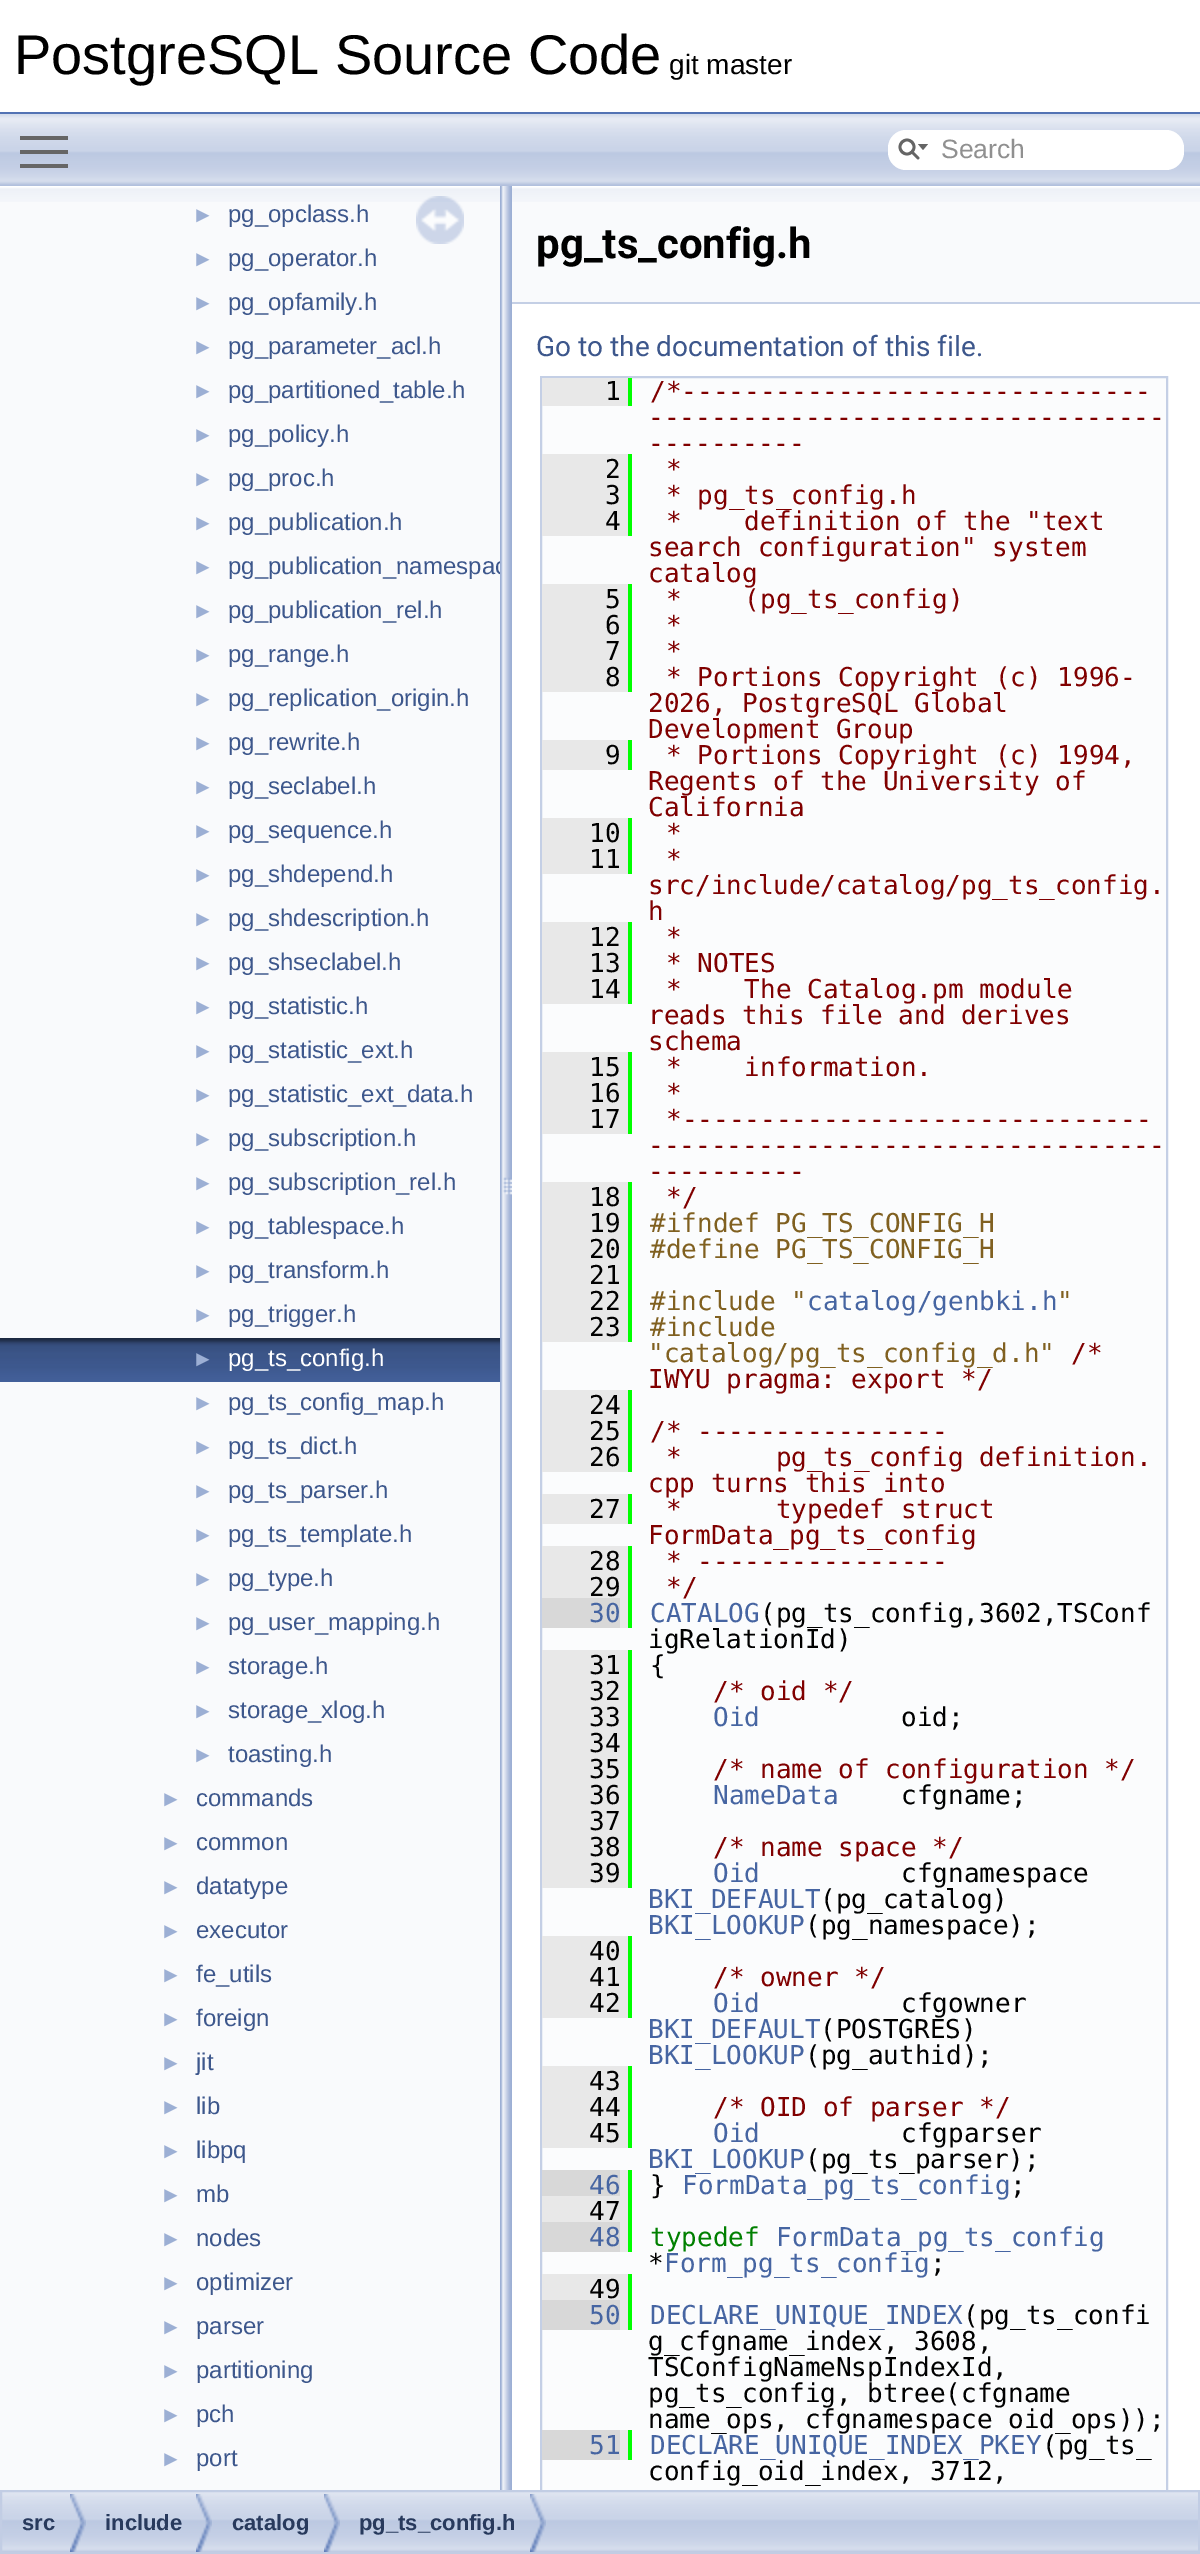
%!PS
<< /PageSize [1200 2554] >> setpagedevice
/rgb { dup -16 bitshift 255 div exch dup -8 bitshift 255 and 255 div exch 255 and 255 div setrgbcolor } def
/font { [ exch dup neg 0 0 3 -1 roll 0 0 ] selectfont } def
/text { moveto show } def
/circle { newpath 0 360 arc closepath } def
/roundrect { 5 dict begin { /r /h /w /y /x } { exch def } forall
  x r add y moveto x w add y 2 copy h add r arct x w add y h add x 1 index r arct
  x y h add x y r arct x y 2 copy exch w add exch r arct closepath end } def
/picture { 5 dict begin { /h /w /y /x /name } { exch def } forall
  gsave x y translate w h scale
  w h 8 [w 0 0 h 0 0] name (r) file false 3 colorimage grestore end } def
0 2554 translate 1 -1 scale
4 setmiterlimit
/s1 { /LiberationSans-Regular 56 font 16#000000 rgb } def
/s2 { /LiberationSans-Regular 28 font 16#000000 rgb } def
/s3 { /LiberationSans-Regular 26.5 font 16#909090 rgb } def
/s4 { /LiberationSans-Regular 22 font 16#9CAFD4 rgb } def
/s5 { /LiberationSans-Regular 24 font 16#3D578C rgb } def
/s6 { /LiberationSans-Regular 24 font 16#FFFFFF rgb } def
/s7 { /Roboto-Bold 42 font 16#000000 rgb } def
/s8 { /Roboto-Regular 28 font 16#3D578C rgb } def
/s9 { /DejaVuSansMono-Regular 26 font 16#000000 rgb } def
/s10 { /DejaVuSansMono-Regular 26 font 16#800000 rgb } def
/s11 { /DejaVuSansMono-Regular 26 font 16#806020 rgb } def
/s12 { /DejaVuSansMono-Regular 26 font 16#4665A2 rgb } def
/s13 { /DejaVuSansMono-Regular 26 font 16#008000 rgb } def
/s14 { /LiberationSans-Bold 22 font 16#283A5D rgb } def
16#FFFFFF rgb
0 0 1200 2554 rectfill
16#5373B4 rgb
0 112 1200 2 rectfill
s1
(PostgreSQL Source Code) 14 74 text
s2
(git master) 669 74 text
(pic1.raw) 0 114 1200 72 picture
16#666666 rgb
20 150 48 4 rectfill
20 136 48 4 rectfill
20 164 48 4 rectfill
16#FFFFFF rgb
888 130 296 40 18 roundrect fill
16#656565 rgb
2.8 setlinewidth
907 147 7 circle stroke
918 144 moveto 923 150 lineto 928 144 lineto closepath fill
1 setlinecap
912 152 moveto 918 158 lineto stroke
s3
(Search) 941 158 text
16#F9FAFC rgb
0 202 500 2288 rectfill
(pic2.raw) 0 186 500 16 picture
(pic3.raw) 416 196 48 48 picture
s4
(►) 192 222 text
s5
(pg_opclass.h) 228 222 text
s4
(►) 192 266 text
s5
(pg_operator.h) 228 266 text
s4
(►) 192 310 text
s5
(pg_opfamily.h) 228 310 text
s4
(►) 192 354 text
s5
(pg_parameter_acl.h) 228 354 text
s4
(►) 192 398 text
s5
(pg_partitioned_table.h) 228 398 text
s4
(►) 192 442 text
s5
(pg_policy.h) 228 442 text
s4
(►) 192 486 text
s5
(pg_proc.h) 228 486 text
s4
(►) 192 530 text
s5
(pg_publication.h) 228 530 text
s4
(►) 192 574 text
s5
(pg_publication_namespac) 228 574 text
s4
(►) 192 618 text
s5
(pg_publication_rel.h) 228 618 text
s4
(►) 192 662 text
s5
(pg_range.h) 228 662 text
s4
(►) 192 706 text
s5
(pg_replication_origin.h) 228 706 text
s4
(►) 192 750 text
s5
(pg_rewrite.h) 228 750 text
s4
(►) 192 794 text
s5
(pg_seclabel.h) 228 794 text
s4
(►) 192 838 text
s5
(pg_sequence.h) 228 838 text
s4
(►) 192 882 text
s5
(pg_shdepend.h) 228 882 text
s4
(►) 192 926 text
s5
(pg_shdescription.h) 228 926 text
s4
(►) 192 970 text
s5
(pg_shseclabel.h) 228 970 text
s4
(►) 192 1014 text
s5
(pg_statistic.h) 228 1014 text
s4
(►) 192 1058 text
s5
(pg_statistic_ext.h) 228 1058 text
s4
(►) 192 1102 text
s5
(pg_statistic_ext_data.h) 228 1102 text
s4
(►) 192 1146 text
s5
(pg_subscription.h) 228 1146 text
s4
(►) 192 1190 text
s5
(pg_subscription_rel.h) 228 1190 text
s4
(►) 192 1234 text
s5
(pg_tablespace.h) 228 1234 text
s4
(►) 192 1278 text
s5
(pg_transform.h) 228 1278 text
s4
(►) 192 1322 text
s5
(pg_trigger.h) 228 1322 text
(pic4.raw) 0 1338 500 44 picture
s4
(►) 192 1366 text
s6
(pg_ts_config.h) 228 1366 text
s4
(►) 192 1410 text
s5
(pg_ts_config_map.h) 228 1410 text
s4
(►) 192 1454 text
s5
(pg_ts_dict.h) 228 1454 text
s4
(►) 192 1498 text
s5
(pg_ts_parser.h) 228 1498 text
s4
(►) 192 1542 text
s5
(pg_ts_template.h) 228 1542 text
s4
(►) 192 1586 text
s5
(pg_type.h) 228 1586 text
s4
(►) 192 1630 text
s5
(pg_user_mapping.h) 228 1630 text
s4
(►) 192 1674 text
s5
(storage.h) 228 1674 text
s4
(►) 192 1718 text
s5
(storage_xlog.h) 228 1718 text
s4
(►) 192 1762 text
s5
(toasting.h) 228 1762 text
s4
(►) 160 1806 text
s5
(commands) 196 1806 text
s4
(►) 160 1850 text
s5
(common) 196 1850 text
s4
(►) 160 1894 text
s5
(datatype) 196 1894 text
s4
(►) 160 1938 text
s5
(executor) 196 1938 text
s4
(►) 160 1982 text
s5
(fe_utils) 196 1982 text
s4
(►) 160 2026 text
s5
(foreign) 196 2026 text
s4
(►) 160 2070 text
s5
(jit) 196 2070 text
s4
(►) 160 2114 text
s5
(lib) 196 2114 text
s4
(►) 160 2158 text
s5
(libpq) 196 2158 text
s4
(►) 160 2202 text
s5
(mb) 196 2202 text
s4
(►) 160 2246 text
s5
(nodes) 196 2246 text
s4
(►) 160 2290 text
s5
(optimizer) 196 2290 text
s4
(►) 160 2334 text
s5
(parser) 196 2334 text
s4
(►) 160 2378 text
s5
(partitioning) 196 2378 text
s4
(►) 160 2422 text
s5
(pch) 196 2422 text
s4
(►) 160 2466 text
s5
(port) 196 2466 text
(pic5.raw) 500 186 12 2304 picture
16#F9FAFC rgb
512 202 688 100 rectfill
(pic6.raw) 512 186 688 16 picture
16#C4CFE5 rgb
512 302 688 2 rectfill
s7
(pg_ts_config.h) 536 258 text
s8
(Go to the documentation of this file.) 536 356 text
16#FBFCFD rgb
542 378 624 2112 rectfill
16#C4CFE5 rgb
2 setlinewidth
0 setlinecap
541 377 626 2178 rectstroke
16#E8E8E8 rgb
542 378 86 28 rectfill
s9
(1) 605 400 text
16#00FF00 rgb
628 378 4 28 rectfill
s10
(/*------------------------------) 650 400 text
(---------------------------------) 648 426 text
(----------) 648 452 text
16#E8E8E8 rgb
542 454 86 82 rectfill
s9
(2) 605 478 text
16#00FF00 rgb
628 454 4 82 rectfill
s10
(*) 666 478 text
s9
(3) 605 504 text
s10
(* pg_ts_config.h) 666 504 text
s9
(4) 605 530 text
s10
(*    definition of the "text) 666 530 text
(search configuration" system) 648 556 text
(catalog) 648 582 text
16#E8E8E8 rgb
542 584 86 108 rectfill
s9
(5) 605 608 text
16#00FF00 rgb
628 584 4 108 rectfill
s10
(*    \(pg_ts_config\)) 666 608 text
s9
(6) 605 634 text
s10
(*) 666 634 text
s9
(7) 605 660 text
s10
(*) 666 660 text
s9
(8) 605 686 text
s10
(* Portions Copyright \(c\) 1996-) 666 686 text
(2026, PostgreSQL Global) 648 712 text
(Development Group) 648 738 text
16#E8E8E8 rgb
542 740 86 30 rectfill
s9
(9) 605 764 text
16#00FF00 rgb
628 740 4 30 rectfill
s10
(* Portions Copyright \(c\) 1994,) 666 764 text
(Regents of the University of) 648 790 text
(California) 648 816 text
16#E8E8E8 rgb
542 818 86 56 rectfill
s9
(10) 589 842 text
16#00FF00 rgb
628 818 4 56 rectfill
s10
(*) 666 842 text
s9
(11) 589 868 text
s10
(*) 666 868 text
(src/include/catalog/pg_ts_config.) 648 894 text
(h) 648 920 text
16#E8E8E8 rgb
542 922 86 82 rectfill
s9
(12) 589 946 text
16#00FF00 rgb
628 922 4 82 rectfill
s10
(*) 666 946 text
s9
(13) 589 972 text
s10
(* NOTES) 666 972 text
s9
(14) 589 998 text
s10
(*    The Catalog.pm module) 666 998 text
(reads this file and derives) 648 1024 text
(schema) 648 1050 text
16#E8E8E8 rgb
542 1052 86 82 rectfill
s9
(15) 589 1076 text
16#00FF00 rgb
628 1052 4 82 rectfill
s10
(*    information.) 666 1076 text
s9
(16) 589 1102 text
s10
(*) 666 1102 text
s9
(17) 589 1128 text
s10
(*------------------------------) 666 1128 text
(---------------------------------) 648 1154 text
(----------) 648 1180 text
16#E8E8E8 rgb
542 1182 86 160 rectfill
s9
(18) 589 1206 text
16#00FF00 rgb
628 1182 4 160 rectfill
s10
(*/) 666 1206 text
s9
(19) 589 1232 text
s11
(#ifndef PG_TS_CONFIG_H) 650 1232 text
s9
(20) 589 1258 text
s11
(#define PG_TS_CONFIG_H) 650 1258 text
s9
(21) 589 1284 text
(22) 589 1310 text
s11
(#include ") 650 1310 text
s12
(catalog/genbki.h) 807 1310 text
s11
(") 1057 1310 text
s9
(23) 589 1336 text
s11
(#include) 650 1336 text
("catalog/pg_ts_config_d.h") 648 1362 text
s10
(/*) 1071 1362 text
(IWYU pragma: export */) 648 1388 text
16#E8E8E8 rgb
542 1390 86 82 rectfill
s9
(24) 589 1414 text
16#00FF00 rgb
628 1390 4 82 rectfill
s9
(25) 589 1440 text
s10
(/* ----------------) 650 1440 text
s9
(26) 589 1466 text
s10
(*      pg_ts_config definition.) 666 1466 text
(cpp turns this into) 648 1492 text
16#E8E8E8 rgb
542 1494 86 30 rectfill
s9
(27) 589 1518 text
16#00FF00 rgb
628 1494 4 30 rectfill
s10
(*      typedef struct) 666 1518 text
(FormData_pg_ts_config) 648 1544 text
16#E8E8E8 rgb
542 1546 86 52 rectfill
s9
(28) 589 1570 text
16#00FF00 rgb
628 1546 4 82 rectfill
s10
(* ----------------) 666 1570 text
s9
(29) 589 1596 text
s10
(*/) 666 1596 text
16#D8D8D8 rgb
542 1598 78 30 rectfill
s12
(30) 589 1622 text
16#E8E8E8 rgb
620 1598 8 30 rectfill
s12
(CATALOG) 650 1622 text
s9
(\(pg_ts_config,3602,TSConf) 760 1622 text
(igRelationId\)) 648 1648 text
16#E8E8E8 rgb
542 1650 86 238 rectfill
s9
(31) 589 1674 text
16#00FF00 rgb
628 1650 4 238 rectfill
s9
({) 650 1674 text
(32) 589 1700 text
s10
(/* oid */) 713 1700 text
s9
(33) 589 1726 text
s12
(Oid) 713 1726 text
s9
(oid;) 901 1726 text
(34) 589 1752 text
(35) 589 1778 text
s10
(/* name of configuration */) 713 1778 text
s9
(36) 589 1804 text
s12
(NameData) 713 1804 text
s9
(cfgname;) 901 1804 text
(37) 589 1830 text
(38) 589 1856 text
s10
(/* name space */) 713 1856 text
s9
(39) 589 1882 text
s12
(Oid) 713 1882 text
s9
(cfgnamespace) 901 1882 text
s12
(BKI_DEFAULT) 648 1908 text
s9
(\(pg_catalog\)) 820 1908 text
s12
(BKI_LOOKUP) 648 1934 text
s9
(\(pg_namespace\);) 805 1934 text
16#E8E8E8 rgb
542 1936 86 82 rectfill
s9
(40) 589 1960 text
16#00FF00 rgb
628 1936 4 82 rectfill
s9
(41) 589 1986 text
s10
(/* owner */) 713 1986 text
s9
(42) 589 2012 text
s12
(Oid) 713 2012 text
s9
(cfgowner) 901 2012 text
s12
(BKI_DEFAULT) 648 2038 text
s9
(\(POSTGRES\)) 820 2038 text
s12
(BKI_LOOKUP) 648 2064 text
s9
(\(pg_authid\);) 805 2064 text
16#E8E8E8 rgb
542 2066 86 82 rectfill
s9
(43) 589 2090 text
16#00FF00 rgb
628 2066 4 82 rectfill
s9
(44) 589 2116 text
s10
(/* OID of parser */) 713 2116 text
s9
(45) 589 2142 text
s12
(Oid) 713 2142 text
s9
(cfgparser) 901 2142 text
s12
(BKI_LOOKUP) 648 2168 text
s9
(\(pg_ts_parser\);) 805 2168 text
16#D8D8D8 rgb
542 2170 78 26 rectfill
s12
(46) 589 2194 text
16#E8E8E8 rgb
620 2170 8 26 rectfill
16#00FF00 rgb
628 2170 4 82 rectfill
s9
(}) 650 2194 text
s12
(FormData_pg_ts_config) 682 2194 text
s9
(;) 1010 2194 text
16#E8E8E8 rgb
542 2196 86 26 rectfill
s9
(47) 589 2220 text
16#D8D8D8 rgb
542 2222 78 30 rectfill
s12
(48) 589 2246 text
16#E8E8E8 rgb
620 2222 8 30 rectfill
s13
(typedef) 650 2246 text
s12
(FormData_pg_ts_config) 776 2246 text
s9
(*) 648 2272 text
s12
(Form_pg_ts_config) 664 2272 text
s9
(;) 930 2272 text
16#E8E8E8 rgb
542 2274 86 26 rectfill
s9
(49) 589 2298 text
16#00FF00 rgb
628 2274 4 56 rectfill
16#D8D8D8 rgb
542 2300 78 30 rectfill
s12
(50) 589 2324 text
16#E8E8E8 rgb
620 2300 8 30 rectfill
s12
(DECLARE_UNIQUE_INDEX) 650 2324 text
s9
(\(pg_ts_confi) 963 2324 text
(g_cfgname_index, 3608,) 648 2350 text
(TSConfigNameNspIndexId,) 648 2376 text
(pg_ts_config, btree\(cfgname) 648 2402 text
(name_ops, cfgnamespace oid_ops\)\);) 648 2428 text
16#D8D8D8 rgb
542 2430 78 30 rectfill
s12
(51) 589 2454 text
16#E8E8E8 rgb
620 2430 8 30 rectfill
16#00FF00 rgb
628 2430 4 30 rectfill
s12
(DECLARE_UNIQUE_INDEX_PKEY) 650 2454 text
s9
(\(pg_ts_) 1042 2454 text
(config_oid_index, 3712,) 648 2480 text
(pic7.raw) 2 2492 1196 60 picture
16#C2CDE4 rgb
1 2491 1198 62 rectstroke
(pic8.raw) 70 2494 16 58 picture
s14
(src) 22 2530 text
(pic8.raw) 196 2494 16 58 picture
(include) 105 2530 text
(pic8.raw) 324 2494 16 58 picture
(catalog) 232 2530 text
(pic8.raw) 530 2494 16 58 picture
(pg_ts_config.h) 359 2530 text
showpage
